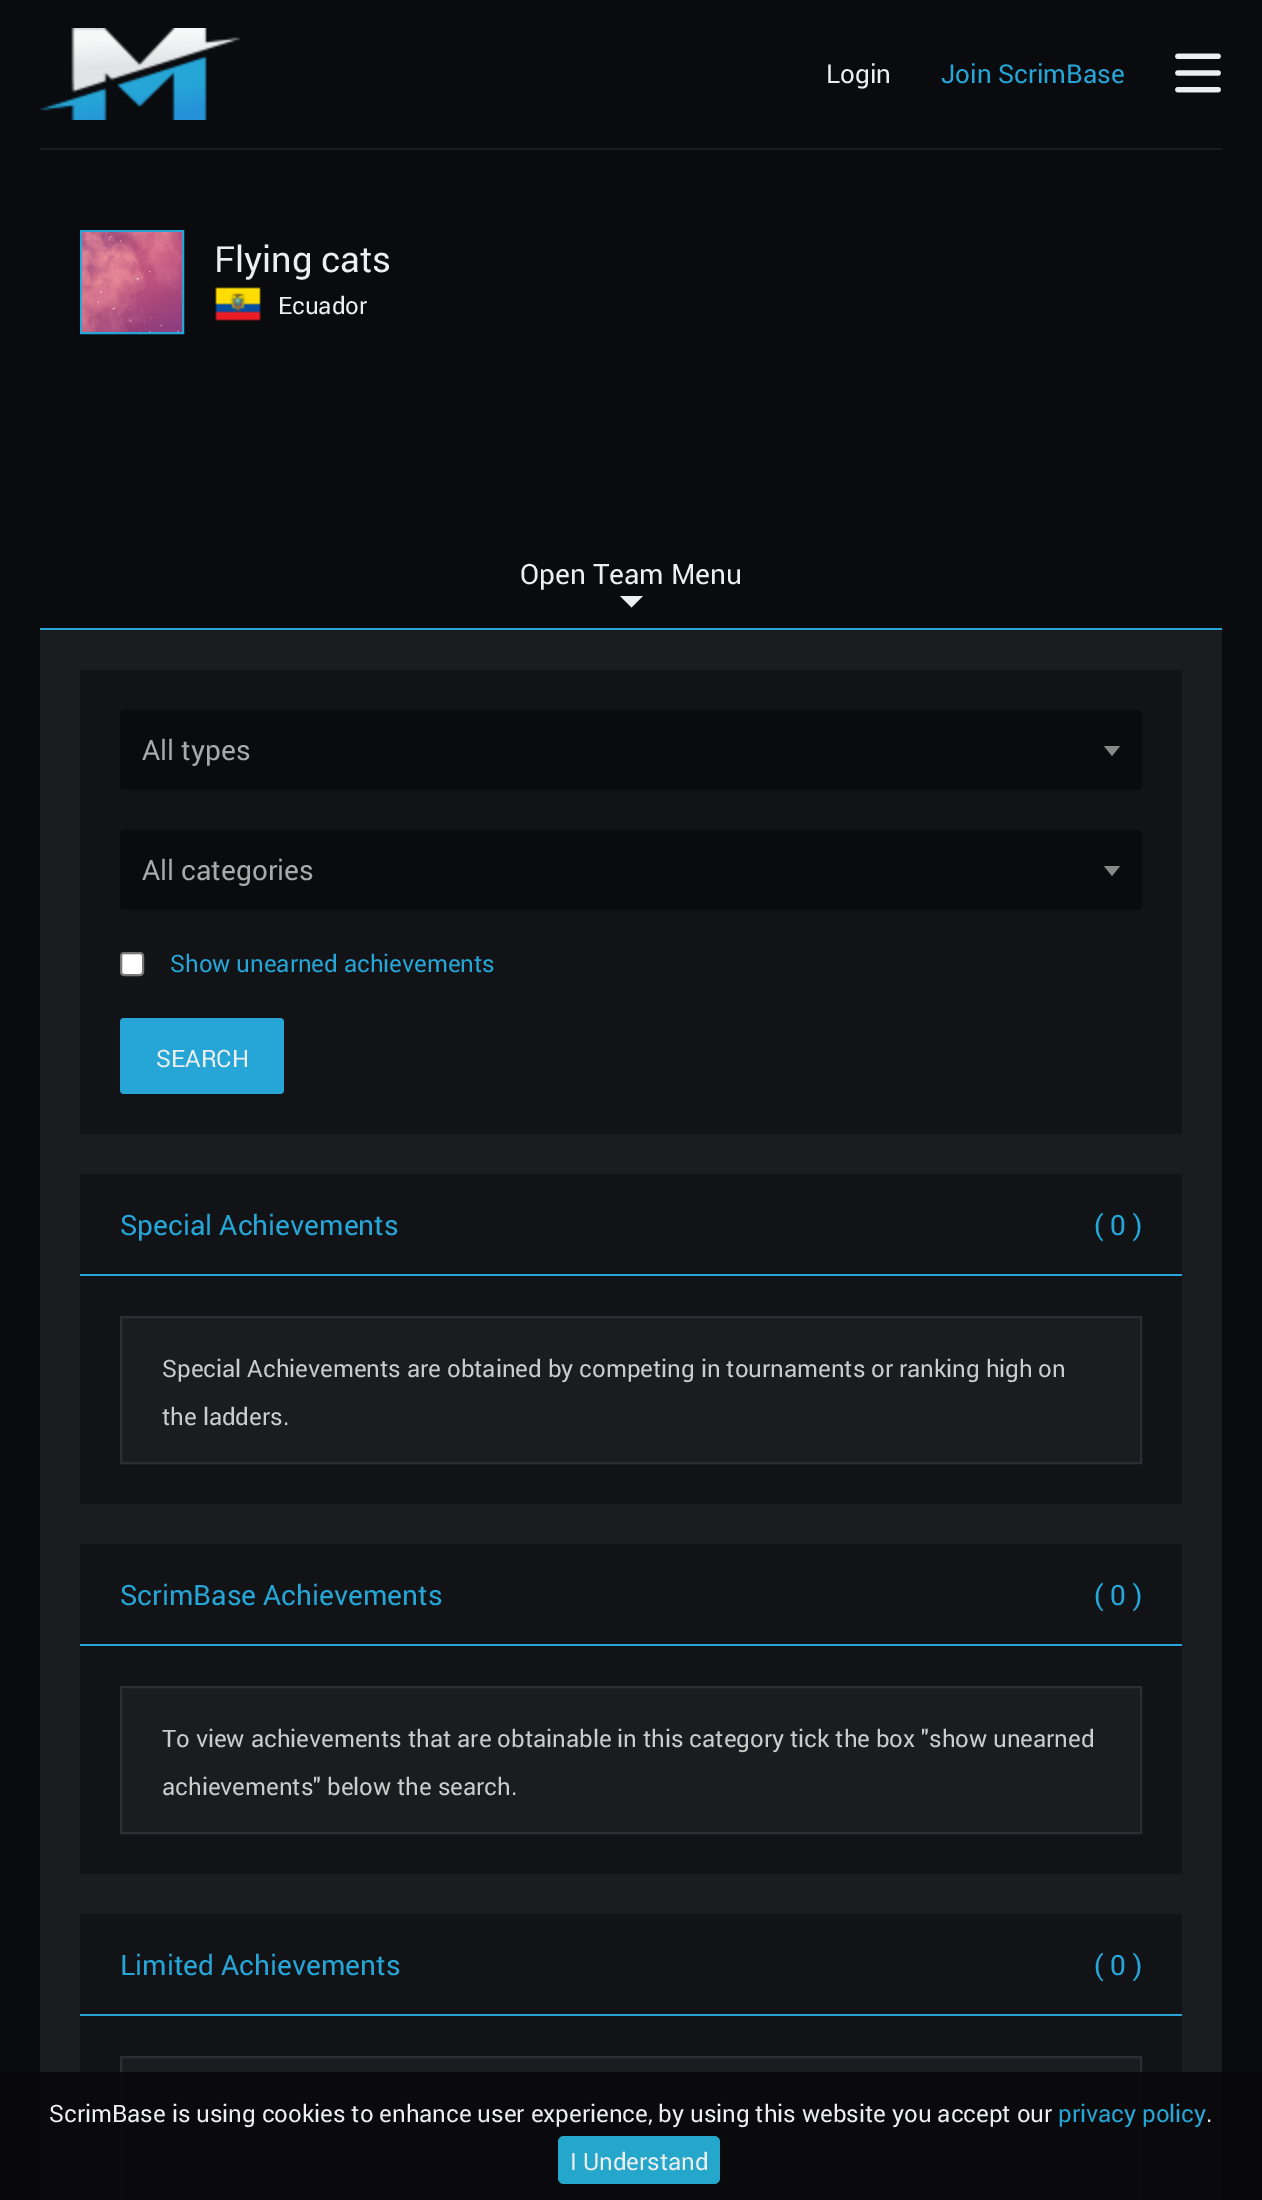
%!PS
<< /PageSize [1262 2200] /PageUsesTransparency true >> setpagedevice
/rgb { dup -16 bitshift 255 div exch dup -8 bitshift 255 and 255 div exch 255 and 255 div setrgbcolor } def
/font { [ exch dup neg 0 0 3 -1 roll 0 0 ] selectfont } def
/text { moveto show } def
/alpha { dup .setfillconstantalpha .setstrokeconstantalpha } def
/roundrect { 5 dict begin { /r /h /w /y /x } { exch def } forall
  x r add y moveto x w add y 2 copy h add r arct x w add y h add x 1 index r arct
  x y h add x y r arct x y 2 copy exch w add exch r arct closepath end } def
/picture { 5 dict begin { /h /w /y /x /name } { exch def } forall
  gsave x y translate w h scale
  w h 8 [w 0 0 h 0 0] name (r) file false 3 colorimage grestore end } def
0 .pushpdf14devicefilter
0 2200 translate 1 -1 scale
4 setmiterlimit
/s1 { /roboto-Regular 26 font 16#EDEEEF rgb } def
/s2 { /roboto-Regular 26 font 16#25A6D7 rgb } def
/s3 { /roboto-Regular 36 font 16#EDEEEF rgb } def
/s4 { /roboto-Regular 24 font 16#EDEEEF rgb } def
/s5 { /roboto-Regular 28 font 16#EDEEEF rgb } def
/s6 { /roboto-Regular 28 font 16#A9A9A9 rgb } def
/s7 { /roboto-Regular 24 font 16#25A6D7 rgb } def
/s8 { /roboto-Regular 28 font 16#25A6D7 rgb } def
/s9 { /roboto-Regular 24 font 16#CCCCCC rgb } def
16#0A0B0F rgb
0 0 1262 2200 rectfill
(pic1.raw) 40 28 200 92 picture
s1
(Login) 826 83 text
s2
(Join ScrimBase) 941 83 text
(pic2.raw) 1175 53 46 40 picture
16#1B1C20 rgb
40 148 1182 2 rectfill
16#25A6D7 rgb
40 628 1182 2 rectfill
2 setlinewidth
81 231 102 102 rectstroke
(pic3.raw) 82 232 100 100 picture
s3
(Flying cats) 214 272 text
(pic4.raw) 215 287 46 34 picture
s4
(Ecuador) 278 314 text
s5
(Open Team Menu) 520 584 text
643 596 moveto 620 596 lineto 631.5 607.5 lineto closepath fill
16#1B1C20 rgb
40 630 1182 1570 rectfill
16#121317 rgb
80 670 1102 464 rectfill
16#0A0B0F rgb
120 710 1022 80 4 roundrect fill
s6
(All types) 142 760 text
16#888888 rgb
1104 746 moveto 1120 746 lineto 1112 756 lineto closepath fill
16#0A0B0F rgb
120 830 1022 80 4 roundrect fill
s6
(All categories) 142 880 text
16#888888 rgb
1104 866 moveto 1120 866 lineto 1112 876 lineto closepath fill
16#FFFFFF rgb
121 953 22 22 3 roundrect gsave fill grestore
16#767676 rgb
stroke
s7
(Show unearned achievements) 170 972 text
120 1018 164 76 4 roundrect fill
s4
(SEARCH) 156 1067 text
16#121317 rgb
80 1174 1102 100 rectfill
16#25A6D7 rgb
80 1274 1102 2 rectfill
s8
(Special Achievements) 120 1235 text
(\( 0 \)) 1094 1235 text
16#121317 rgb
80 1276 1102 228 rectfill
16#1B1C20 rgb
121 1317 moveto 1141 1317 lineto 1141 1463 lineto 121 1463 lineto closepath gsave fill grestore
16#2C2E35 rgb
stroke
s9
(Special Achievements are obtained by competing in tournaments or ranking high on) 162 1377 text
(the ladders.) 162 1425 text
16#121317 rgb
80 1544 1102 100 rectfill
16#25A6D7 rgb
80 1644 1102 2 rectfill
s8
(ScrimBase Achievements) 120 1605 text
(\( 0 \)) 1094 1605 text
16#121317 rgb
80 1646 1102 228 rectfill
16#1B1C20 rgb
121 1687 moveto 1141 1687 lineto 1141 1833 lineto 121 1833 lineto closepath gsave fill grestore
16#2C2E35 rgb
stroke
s9
(To view achievements that are obtainable in this category tick the box "show unearned) 162 1747 text
(achievements" below the search.) 162 1795 text
16#121317 rgb
80 1914 1102 100 rectfill
16#25A6D7 rgb
80 2014 1102 2 rectfill
s8
(Limited Achievements) 120 1975 text
(\( 0 \)) 1094 1975 text
16#121317 rgb
80 2016 1102 184 rectfill
16#1B1C20 rgb
121 2057 moveto 1141 2057 lineto 1141 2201 lineto 121 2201 lineto closepath gsave fill grestore
16#2C2E35 rgb
stroke
0.9 alpha
16#08080A rgb
0 2072 1262 128 rectfill
1 alpha
s4
(ScrimBase is using cookies to enhance user experience, by using this website you accept our) 49 2122 text
s7
(privacy policy) 1058 2122 text
s4
(.) 1206 2122 text
16#25A6CB rgb
558 2136 162 48 6 roundrect fill
s4
(I Understand) 570 2170 text
.poppdf14devicefilter showpage
